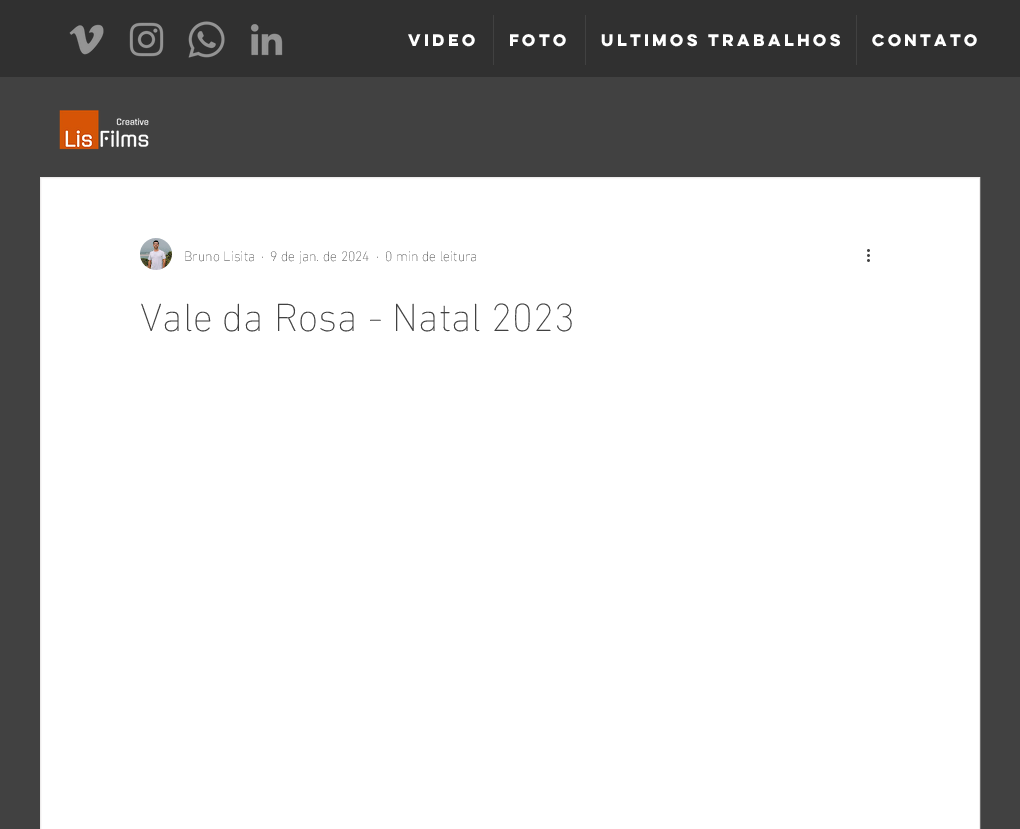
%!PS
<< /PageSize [1020 829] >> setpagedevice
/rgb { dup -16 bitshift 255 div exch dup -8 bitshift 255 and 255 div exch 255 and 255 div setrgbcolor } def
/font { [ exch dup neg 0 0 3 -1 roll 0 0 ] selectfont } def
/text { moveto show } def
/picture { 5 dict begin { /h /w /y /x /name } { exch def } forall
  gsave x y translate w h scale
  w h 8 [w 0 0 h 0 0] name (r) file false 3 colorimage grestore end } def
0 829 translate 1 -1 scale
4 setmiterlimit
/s1 { /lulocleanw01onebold-Bold 15 font 16#FFFFFF rgb } def
/s2 { /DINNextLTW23-ExtraLight 14 font 16#414141 rgb } def
/s3 { /DINNextLTW23-ExtraLight 40 font 16#414141 rgb } def
16#414141 rgb
0 0 1020 829 rectfill
16#303030 rgb
0 0 1020 77 rectfill
(pic1.raw) 69 24 35 31 picture
(pic2.raw) 129 22 35 35 picture
(pic3.raw) 188 21 37 37 picture
(pic4.raw) 250 24 33 32 picture
s1
(VIDEO) 408 46 text
16#414141 rgb
493 15 1 50 rectfill
s1
(FOTO) 509 46 text
16#414141 rgb
585 15 1 50 rectfill
s1
(ULTIMOS TRABALHOS) 601 46 text
16#414141 rgb
856 15 1 50 rectfill
s1
(CONTATO) 872 46 text
(pic5.raw) 59 110 90 40 picture
40.5 177.5 moveto 979.5 177.5 lineto 979.5 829.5 lineto 40.5 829.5 lineto closepath gsave fill grestore
16#EEECEC rgb
stroke
(pic6.raw) 140 238 32 32 picture
s2
(Bruno Lisita) 184 261 text
(·) 261 261 text
(9 de jan. de 2024) 270 261 text
(·) 376 261 text
(0 min de leitura) 385 261 text
(pic7.raw) 867 249 3 13 picture
s3
(Vale da Rosa - Natal 2023) 140 331 text
showpage
